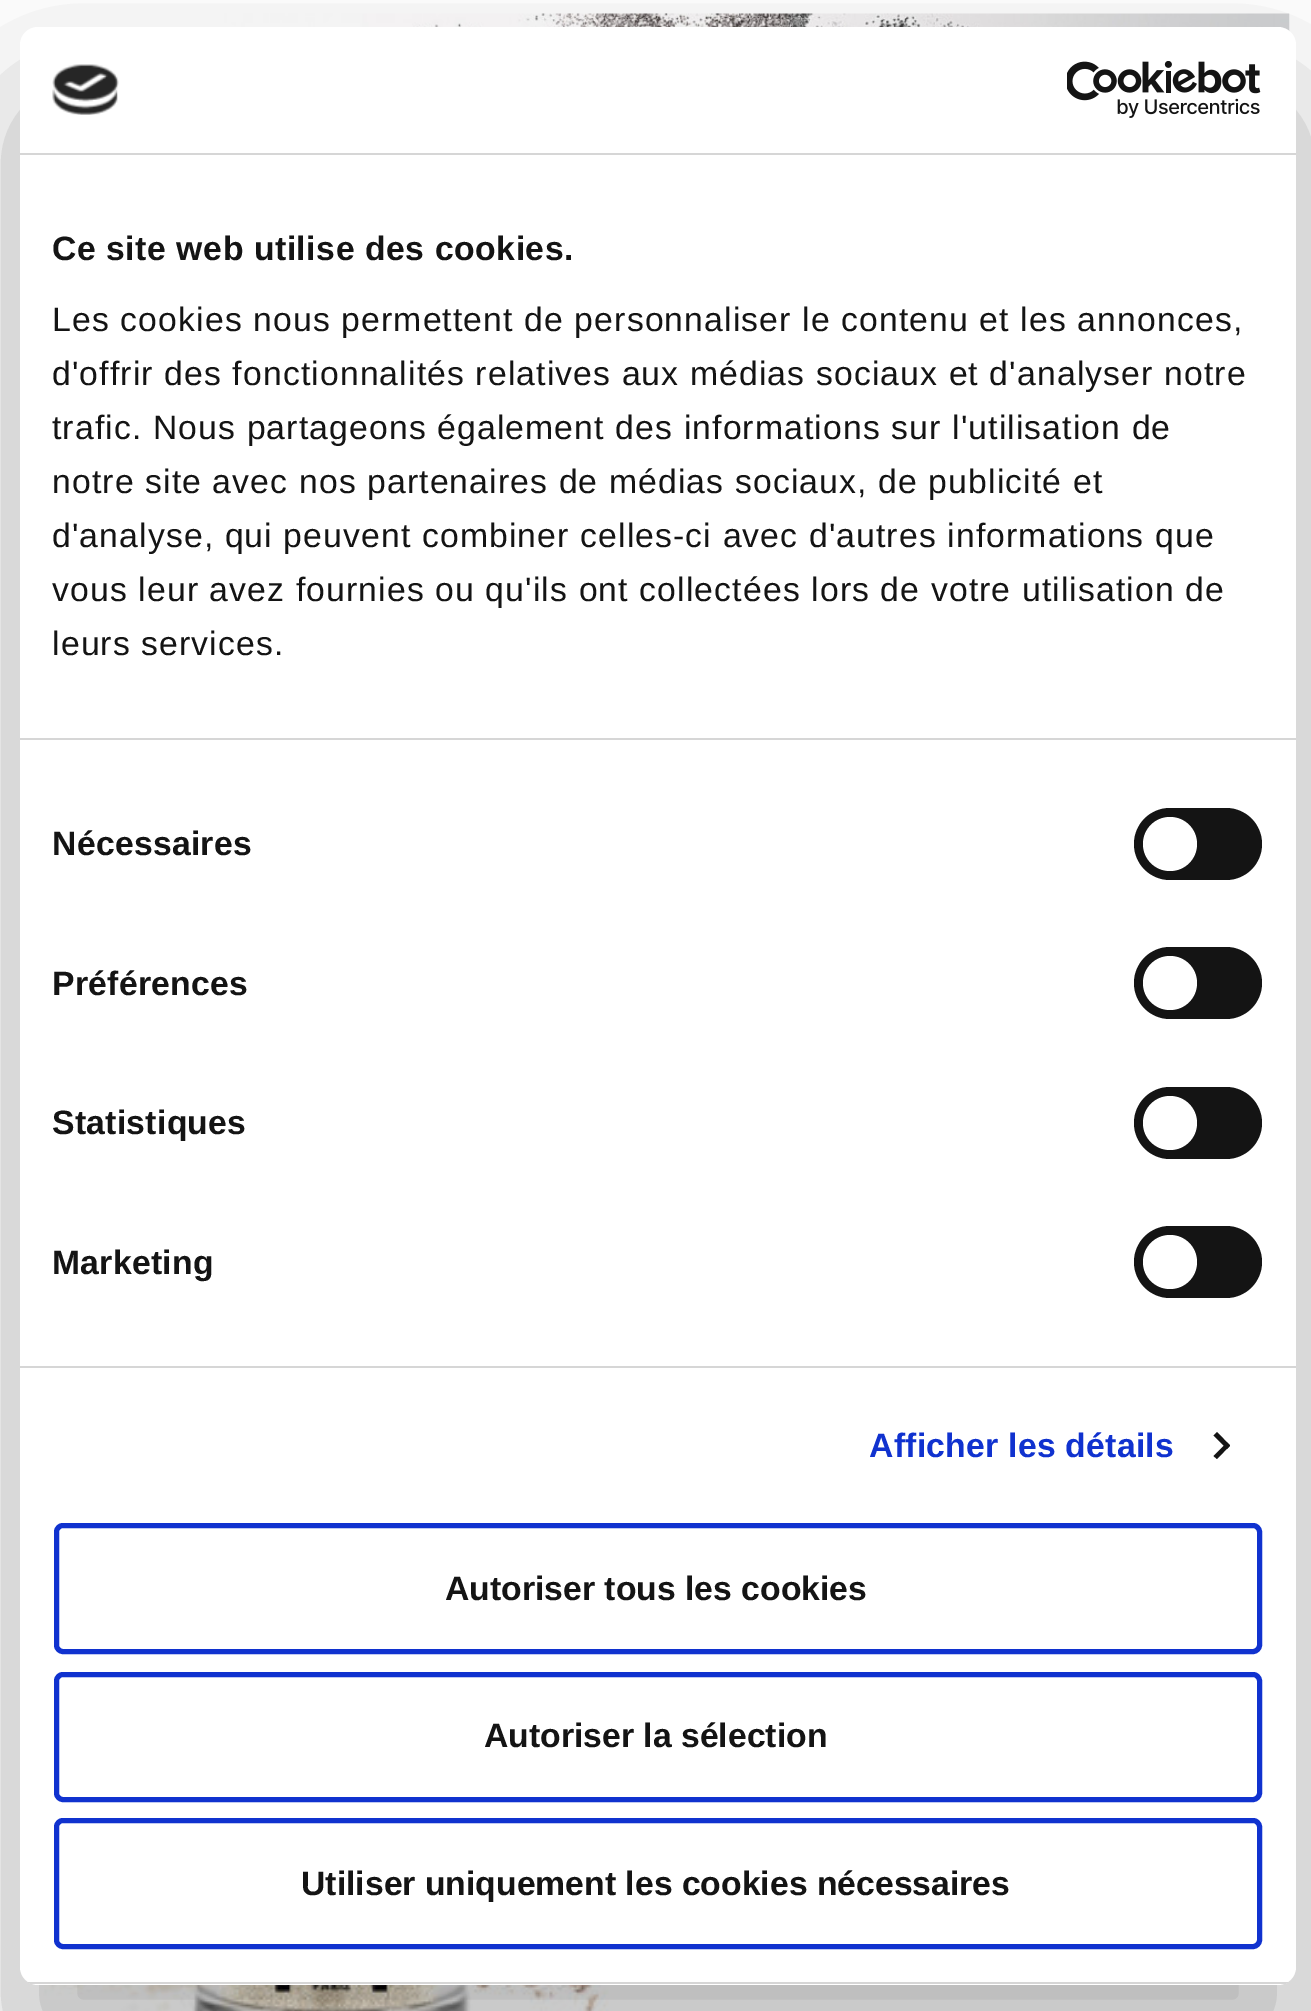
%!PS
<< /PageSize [1311 2011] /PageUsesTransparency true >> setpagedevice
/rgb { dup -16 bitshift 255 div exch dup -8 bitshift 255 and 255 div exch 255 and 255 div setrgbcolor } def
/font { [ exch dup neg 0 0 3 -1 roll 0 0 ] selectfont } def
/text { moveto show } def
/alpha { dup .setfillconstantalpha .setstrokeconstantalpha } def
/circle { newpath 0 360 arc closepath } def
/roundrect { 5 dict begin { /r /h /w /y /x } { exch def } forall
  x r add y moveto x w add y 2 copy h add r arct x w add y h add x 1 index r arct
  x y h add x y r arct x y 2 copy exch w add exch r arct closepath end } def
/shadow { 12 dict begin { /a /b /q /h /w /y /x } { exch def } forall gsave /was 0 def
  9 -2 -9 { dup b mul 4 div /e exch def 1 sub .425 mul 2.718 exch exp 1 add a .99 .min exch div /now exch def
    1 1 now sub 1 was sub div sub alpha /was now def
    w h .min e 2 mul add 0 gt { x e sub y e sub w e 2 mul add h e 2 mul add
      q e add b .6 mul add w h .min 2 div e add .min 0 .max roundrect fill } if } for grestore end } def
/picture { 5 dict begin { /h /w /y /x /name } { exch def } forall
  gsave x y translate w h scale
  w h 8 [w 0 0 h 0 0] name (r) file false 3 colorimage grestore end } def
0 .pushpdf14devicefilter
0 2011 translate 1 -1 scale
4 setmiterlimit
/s1 { /LiberationSans-Bold 33.75 font 16#141414 rgb } def
16#FFFFFF rgb
0 0 1311 2011 rectfill
(pic1.raw) 224 13 1066 19 picture
(pic2.raw) 36 1984 586 27 picture
16#000000 rgb
20 99 1276 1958 18 76.5 0.3 shadow
16#FFFFFF rgb
20 27 1276 1958 18 roundrect fill
16#D6D6D6 rgb
20 153 1276 2 rectfill
(pic3.raw) 52 64 67 51 picture
(pic4.raw) 1067 61 194 57 picture
20 738 1276 2 rectfill
/LiberationSans-Bold 33.75 font
16#141414 rgb
52 260 moveto 0.55 0 (Ce site web utilise des cookies.) ashow
/LiberationSans-Regular 33.75 font
52 331 moveto 1.12 0 (Les cookies nous permettent de personnaliser le contenu et les annonces,) ashow
52 385 moveto 1.12 0 (d'offrir des fonctionnalités relatives aux médias sociaux et d'analyser notre) ashow
52 439 moveto 1.12 0 (trafic. Nous partageons également des informations sur l'utilisation de) ashow
52 493 moveto 1.12 0 (notre site avec nos partenaires de médias sociaux, de publicité et) ashow
52 547 moveto 1.12 0 (d'analyse, qui peuvent combiner celles-ci avec d'autres informations que) ashow
52 601 moveto 1.12 0 (vous leur avez fournies ou qu'ils ont collectées lors de votre utilisation de) ashow
52 655 moveto 1.12 0 (leurs services.) ashow
16#D6D6D6 rgb
20 1366 1276 2 rectfill
/LiberationSans-Bold 33.75 font
16#141414 rgb
52 855 moveto 0.25 0 (Nécessaires) ashow
1134 808 128 72 36 roundrect fill
16#FFFFFF rgb
1170 844 27 circle fill
16#141414 rgb
52 995 moveto 0.25 0 (Préférences) ashow
1134 947 128 72 36 roundrect fill
16#FFFFFF rgb
1170 983 27 circle fill
16#141414 rgb
52 1134 moveto 0.25 0 (Statistiques) ashow
1134 1087 128 72 36 roundrect fill
16#FFFFFF rgb
1170 1123 27 circle fill
16#141414 rgb
52 1274 moveto 0.25 0 (Marketing) ashow
1134 1226 128 72 36 roundrect fill
16#FFFFFF rgb
1170 1262 27 circle fill
16#1032CF rgb
869 1457 moveto 0.25 0 (Afficher les détails) ashow
16#141414 rgb
1217 1432 moveto 1230 1445.5 lineto 1227 1449 lineto 1213.5 1435.5 lineto closepath fill
1227 1442.5 moveto 1230 1445.5 lineto 1217 1459 lineto 1213.5 1456 lineto closepath fill
gsave
20 27 1276 1958 18 roundrect clip newpath
16#D6D6D6 rgb
20 1982 1276 2 rectfill
grestore
16#1032CF rgb
5 setlinewidth
56.5 1525.5 1203 126 6.5 roundrect stroke
s1
(Autoriser tous les cookies) 445 1600 text
16#1032CF rgb
56.5 1674.5 1203 125 6.5 roundrect stroke
s1
(Autoriser la sélection) 484 1747 text
16#1032CF rgb
56.5 1820.5 1203 126 6.5 roundrect stroke
s1
(Utiliser uniquement les cookies nécessaires) 301 1895 text
.poppdf14devicefilter showpage
